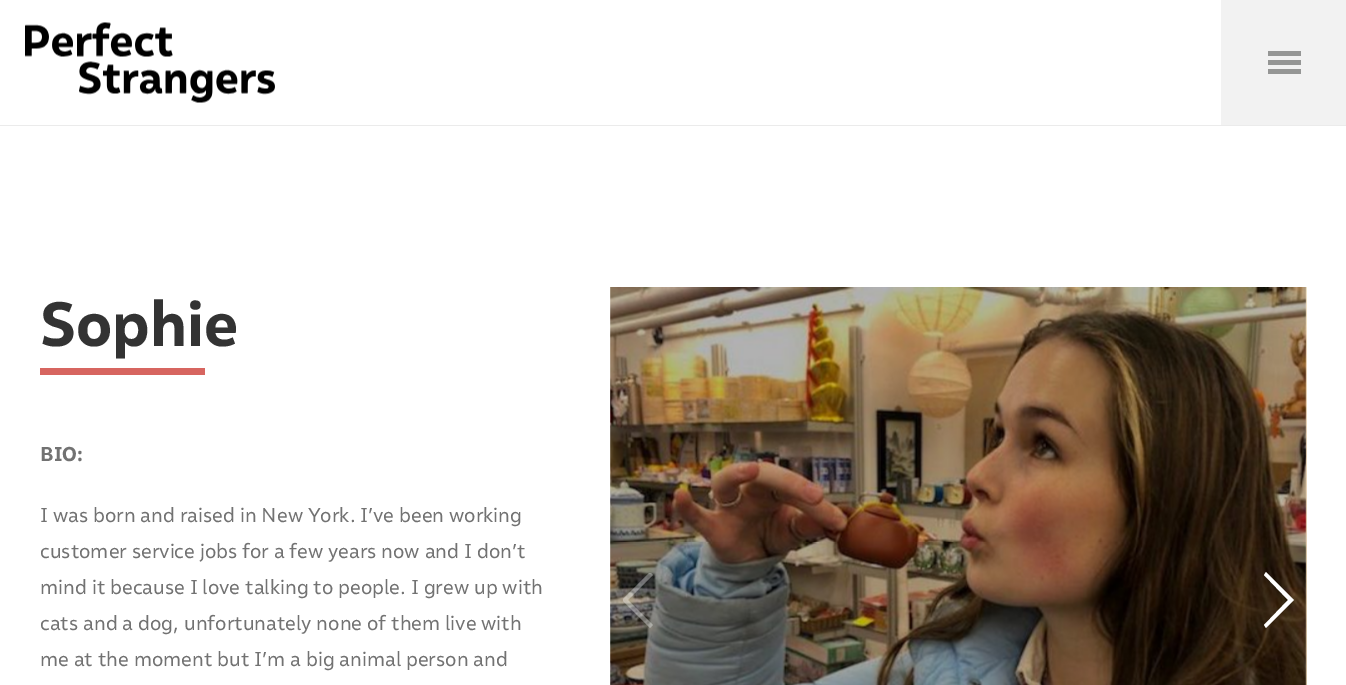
%!PS
<< /PageSize [1346 685] /PageUsesTransparency true >> setpagedevice
/rgb { dup -16 bitshift 255 div exch dup -8 bitshift 255 and 255 div exch 255 and 255 div setrgbcolor } def
/font { [ exch dup neg 0 0 3 -1 roll 0 0 ] selectfont } def
/text { moveto show } def
/alpha { dup .setfillconstantalpha .setstrokeconstantalpha } def
/picture { 5 dict begin { /h /w /y /x /name } { exch def } forall
  gsave x y translate w h scale
  w h 8 [w 0 0 h 0 0] name (r) file false 3 colorimage grestore end } def
0 .pushpdf14devicefilter
0 685 translate 1 -1 scale
4 setmiterlimit
/s1 { /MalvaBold-Bold 62.5 font 16#333333 rgb } def
/s2 { /MalvaBold-Bold 20 font 16#727272 rgb } def
/s3 { /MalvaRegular-Regular 20 font 16#727272 rgb } def
16#FFFFFF rgb
0 0 1346 685 rectfill
16#EBEBEB rgb
0 125 1346 1 rectfill
(pic1.raw) 25 22 250 81 picture
16#F2F2F2 rgb
1221 0 125 125 rectfill
16#959695 rgb
1268 69 33 5 rectfill
1268 51 33 5 rectfill
1268 60 33 5 rectfill
s1
(Sophie) 40 346 text
16#D76560 rgb
40 368 165 7 rectfill
s2
(BIO:) 40 461 text
s3
(I was born and raised in New York. I’ve been working) 40 522 text
(customer service jobs for a few years now and I don’t) 40 558 text
(mind it because I love talking to people. I grew up with) 40 594 text
(cats and a dog, unfortunately none of them live with) 40 630 text
(me at the moment but I’m a big animal person and) 40 666 text
(pic2.raw) 610 287 697 398 picture
(pic3.raw) 1306 287 1 398 picture
gsave
623 573 33 55 rectclip
0.35 alpha
16#FFFFFF rgb
622 600 moveto 650 572 lineto 653 575 lineto 628 600 lineto 653 625 lineto 650 628 lineto closepath fill
grestore
16#FFFFFF rgb
1294 600 moveto 1266 628 lineto 1264 625 lineto 1288 600 lineto 1264 575 lineto 1266 572 lineto closepath fill
.poppdf14devicefilter showpage
